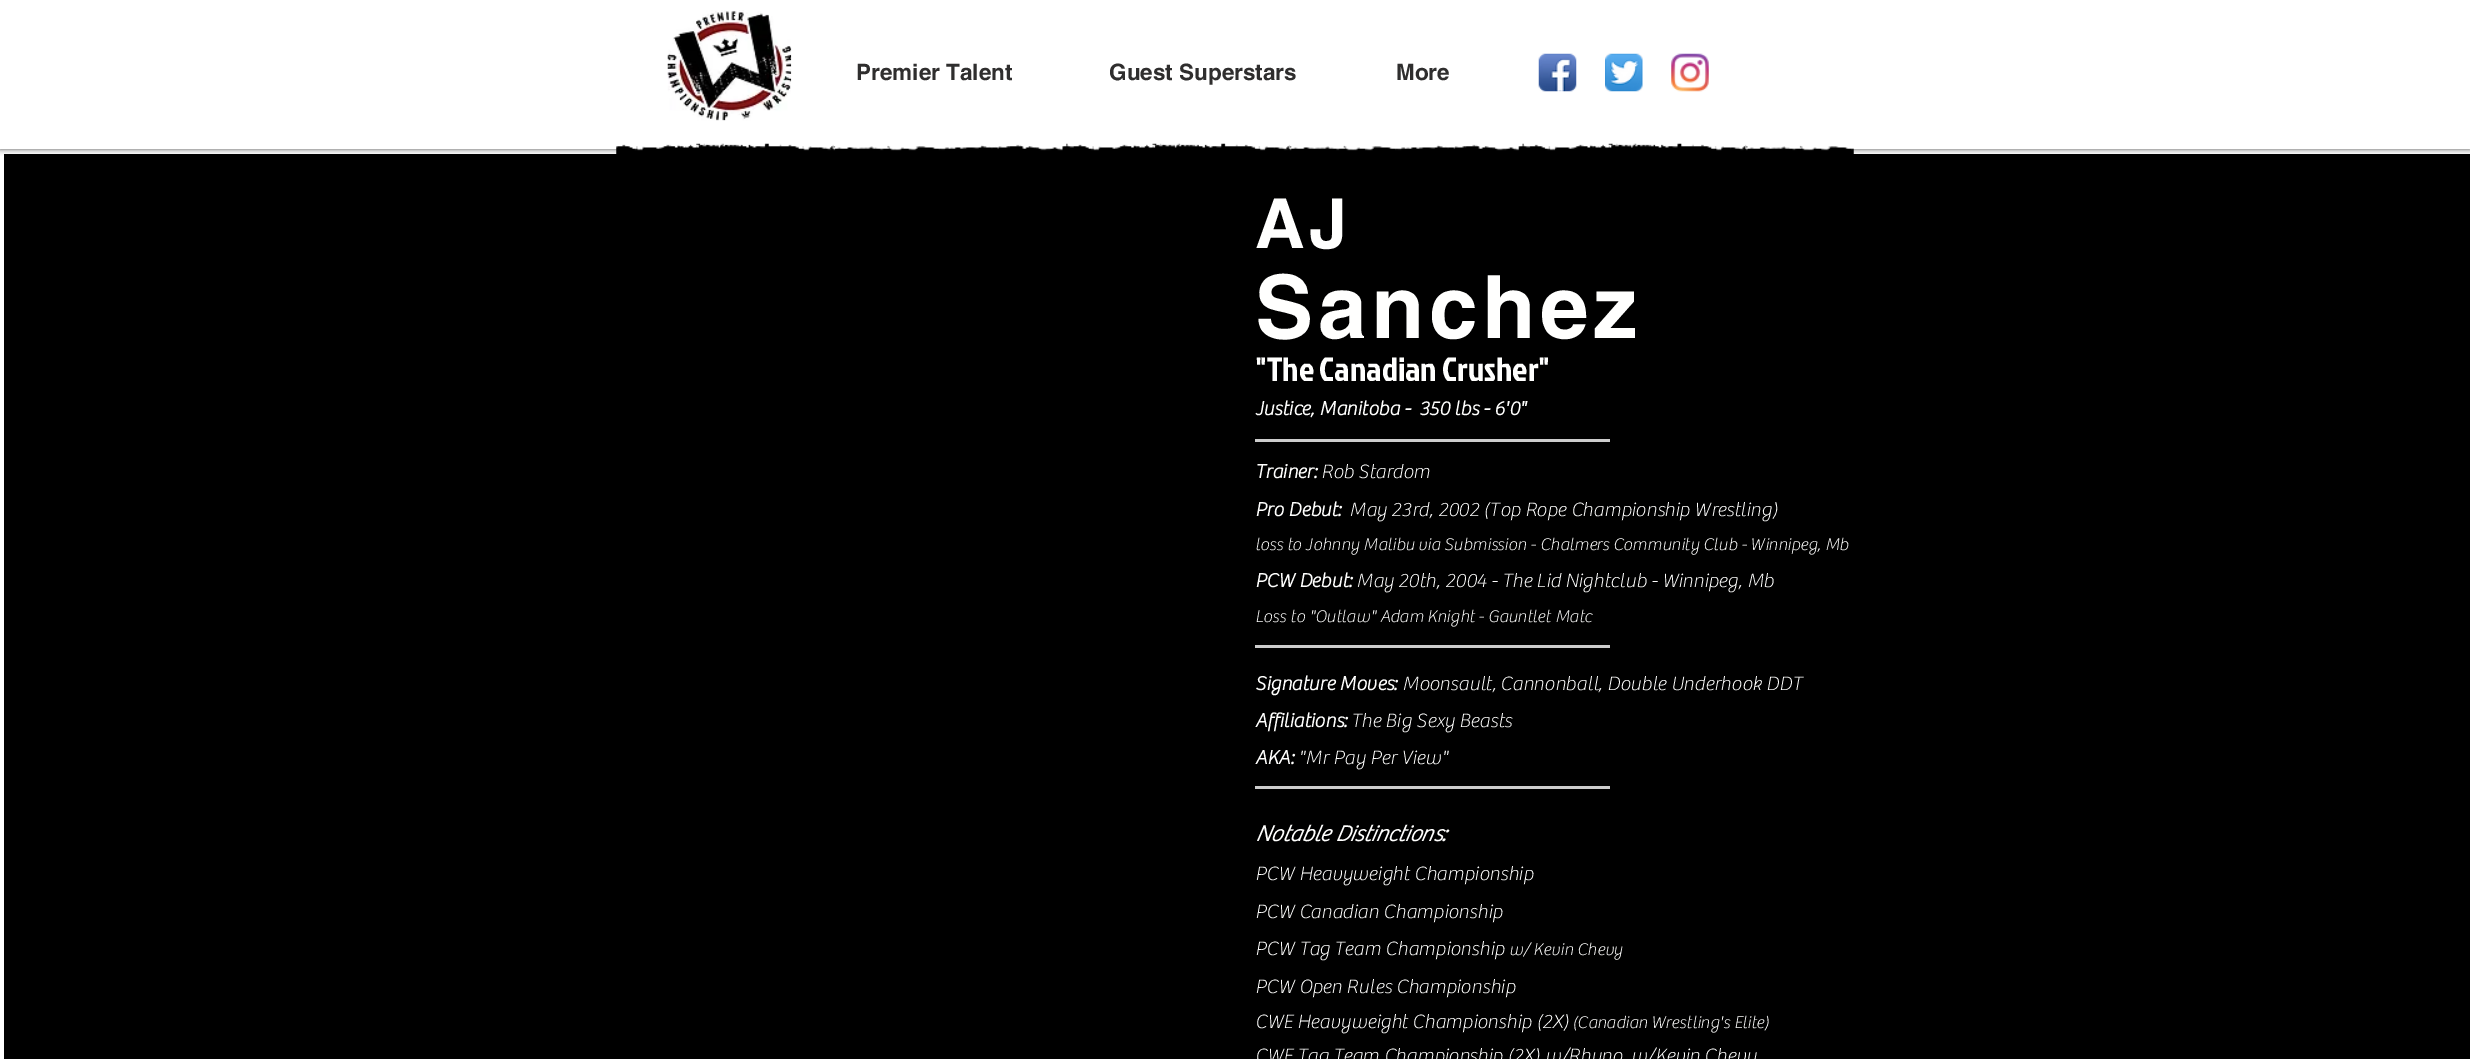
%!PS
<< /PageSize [2470 1059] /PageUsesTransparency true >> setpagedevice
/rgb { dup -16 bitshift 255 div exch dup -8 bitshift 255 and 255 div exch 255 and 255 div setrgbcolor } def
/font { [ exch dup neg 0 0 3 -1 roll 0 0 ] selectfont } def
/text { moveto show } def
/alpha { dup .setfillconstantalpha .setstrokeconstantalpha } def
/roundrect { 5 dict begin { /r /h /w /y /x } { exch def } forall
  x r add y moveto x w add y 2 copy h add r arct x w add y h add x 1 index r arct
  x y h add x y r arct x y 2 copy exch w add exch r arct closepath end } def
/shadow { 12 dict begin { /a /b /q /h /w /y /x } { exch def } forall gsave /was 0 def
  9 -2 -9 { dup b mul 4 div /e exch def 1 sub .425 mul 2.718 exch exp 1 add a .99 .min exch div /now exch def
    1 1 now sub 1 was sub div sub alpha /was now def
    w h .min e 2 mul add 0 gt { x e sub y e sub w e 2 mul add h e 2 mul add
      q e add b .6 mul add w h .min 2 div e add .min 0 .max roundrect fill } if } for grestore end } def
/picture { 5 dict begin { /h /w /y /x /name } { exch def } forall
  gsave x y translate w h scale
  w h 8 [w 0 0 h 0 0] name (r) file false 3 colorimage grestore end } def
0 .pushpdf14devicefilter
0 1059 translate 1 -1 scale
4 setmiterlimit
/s1 { /helvetica-Bold 22.5 font 16#2F2E2E rgb } def
/s2 { /JockeyOne-Regular 33.75 font 16#FFFFFE rgb } def
/s3 { /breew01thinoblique-Bold 20 font 16#FFFFFE rgb } def
/s4 { /breew01thinoblique-Thin 20 font 16#FFFFFE rgb } def
/s5 { /breew01thinoblique-Thin 17.5 font 16#FFFFFE rgb } def
/s6 { /breew01thinoblique-BoldItalic 22.5 font 16#FFFFFE rgb } def
16#FFFFFF rgb
0 0 2470 1059 rectfill
16#000000 rgb
0 0 2470 149 0 3 0.7 shadow
16#FFFFFF rgb
0 0 2470 149 rectfill
(pic1.raw) 667 10 125 111 picture
s1
(Premier Talent) 856 80 text
(Guest Superstars) 1109 80 text
(More) 1396 80 text
(pic2.raw) 1538 53 39 39 picture
(pic3.raw) 1605 53 38 39 picture
(pic4.raw) 1671 53 38 39 picture
(pic5.raw) 616 143 1238 11 picture
16#000000 rgb
4 154 2466 905 rectfill
/helvetica-Bold 69 font
16#FFFFFE rgb
1255 248 moveto 4.5 0 (AJ) ashow
/helvetica-Bold 87.5 font
1255 338 moveto 4.5 0 (Sanchez) ashow
s2
("The Canadian Crusher") 1255 381 text
s3
(Justice, Manitoba -  350 lbs - 6'0") 1255 415 text
(Trainer:) 1255 478 text
s4
(Rob Stardom) 1321 478 text
s3
(Pro Debut:) 1255 516 text
s4
(May 23rd, 2002 \(Top Rope Championship Wrestling\)) 1349 516 text
s5
(loss to Johnny Malibu via Submission - Chalmers Community Club - Winnipeg, Mb) 1255 550 text
s3
(PCW Debut:) 1255 587 text
s4
(May 20th, 2004 - The Lid Nightclub - Winnipeg, Mb) 1356 587 text
s5
(Loss to "Outlaw" Adam Knight - Gauntlet Matc) 1255 622 text
s3
(Signature Moves:) 1255 690 text
s4
(Moonsault, Cannonball, Double Underhook DDT) 1402 690 text
s3
(Affiliations:) 1255 727 text
s4
(The Big Sexy Beasts) 1351 727 text
s3
(AKA:) 1255 764 text
s4
("Mr Pay Per View") 1298 764 text
s6
(Notable Distinctions:) 1255 841 text
s4
(PCW Heavyweight Championship) 1255 880 text
(PCW Canadian Championship) 1255 918 text
(PCW Tag Team Championship) 1255 955 text
s5
(w/ Kevin Chevy) 1509 955 text
s4
(PCW Open Rules Championship) 1255 993 text
(CWE Heavyweight Championship \(2X\)) 1255 1028 text
s5
(\(Canadian Wrestling's Elite\)) 1572 1028 text
s4
(CWE Tag Team Championship \(2X\) w/Rhyno, w/Kevin Chevy) 1255 1062 text
16#CCCCCC rgb
1255 439 355 3 rectfill
1255 645 355 3 rectfill
1255 786 355 3 rectfill
.poppdf14devicefilter showpage
